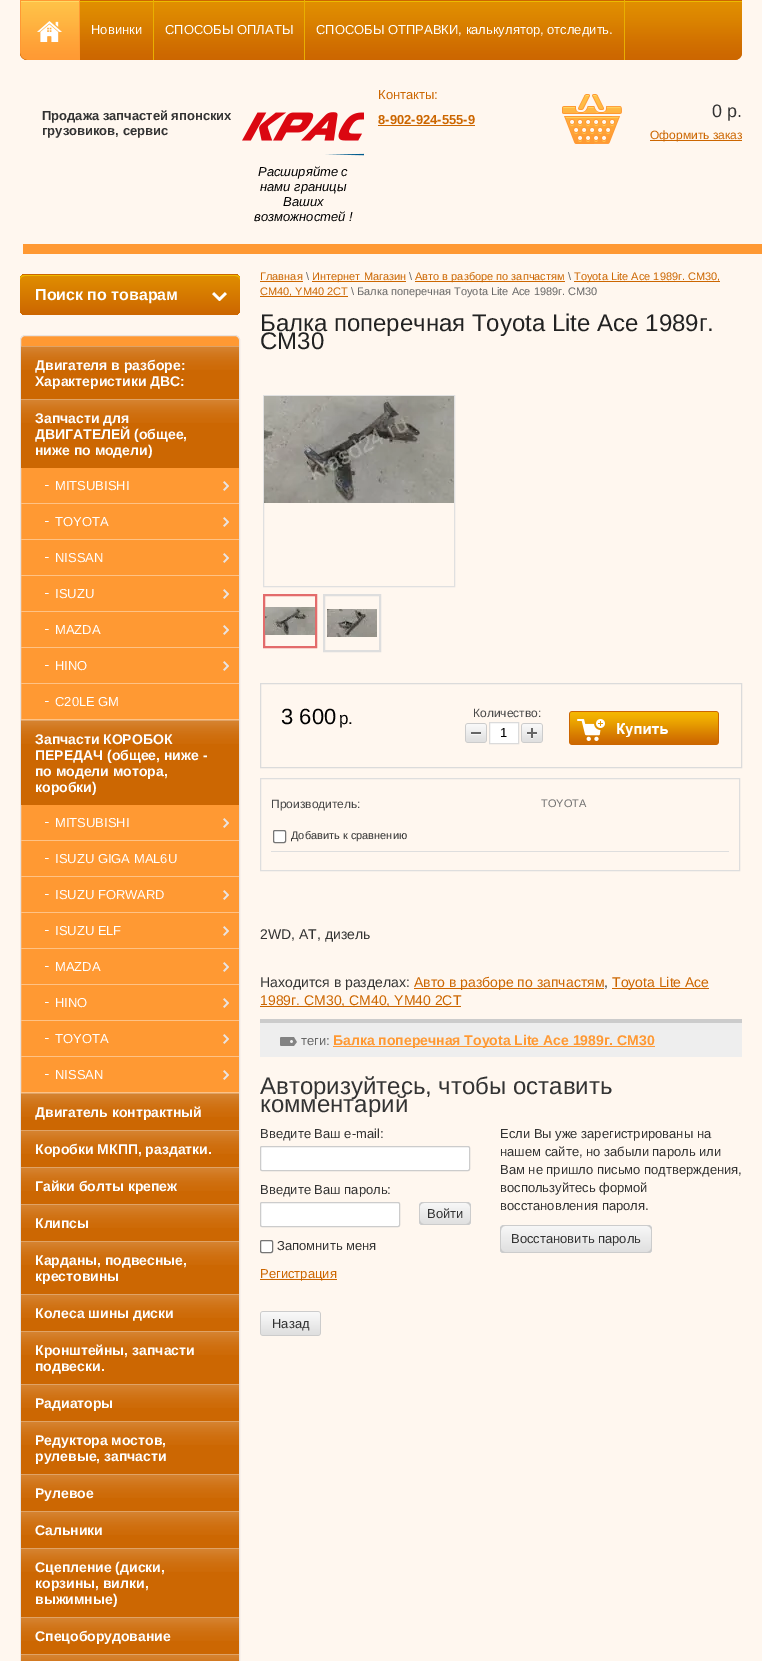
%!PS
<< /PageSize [762 1661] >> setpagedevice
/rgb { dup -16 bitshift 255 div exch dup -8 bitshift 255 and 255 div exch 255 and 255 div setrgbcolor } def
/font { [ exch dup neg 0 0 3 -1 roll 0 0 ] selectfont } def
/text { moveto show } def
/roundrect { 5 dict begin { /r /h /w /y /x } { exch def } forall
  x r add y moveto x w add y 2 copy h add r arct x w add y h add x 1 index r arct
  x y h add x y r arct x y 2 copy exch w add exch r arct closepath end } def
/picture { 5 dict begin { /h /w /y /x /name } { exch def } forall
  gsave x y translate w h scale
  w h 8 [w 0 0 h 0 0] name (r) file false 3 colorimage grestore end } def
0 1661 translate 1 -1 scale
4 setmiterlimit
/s1 { /LiberationSans-Regular 13 font 16#FFFFFF rgb } def
/s2 { /LiberationSans-Bold 13 font 16#333333 rgb } def
/s3 { /LiberationSans-Italic 13 font 16#000000 rgb } def
/s4 { /LiberationSans-Regular 13 font 16#CC6600 rgb } def
/s5 { /LiberationSans-Bold 13 font 16#CC6600 rgb } def
/s6 { /LiberationSans-Regular 18 font 16#333333 rgb } def
/s7 { /LiberationSans-Regular 12 font 16#CC6600 rgb } def
/s8 { /LiberationSans-Bold 16 font 16#FFFFFF rgb } def
/s9 { /LiberationSans-Bold 14 font 16#FFFFFF rgb } def
/s10 { /LiberationSans-Regular 11 font 16#CC6600 rgb } def
/s11 { /LiberationSans-Regular 11 font 16#666666 rgb } def
/s12 { /LiberationSans-Regular 24 font 16#222222 rgb } def
/s13 { /LiberationSans-Regular 22 font 16#000000 rgb } def
/s14 { /LiberationSans-Regular 17 font 16#000000 rgb } def
/s15 { /LiberationSans-Regular 12 font 16#484848 rgb } def
/s16 { /LiberationSans-Regular 13 font 16#000000 rgb } def
/s17 { /LiberationSans-Regular 11 font 16#6F6F6F rgb } def
/s18 { /LiberationSans-Regular 11 font 16#333333 rgb } def
/s19 { /LiberationSans-Regular 14 font 16#333333 rgb } def
/s20 { /LiberationSans-Regular 14 font 16#CC6600 rgb } def
/s21 { /LiberationSans-Regular 13 font 16#666666 rgb } def
/s22 { /LiberationSans-Bold 14 font 16#FF9933 rgb } def
/s23 { /LiberationSans-Regular 24 font 16#333333 rgb } def
/s24 { /LiberationSans-Regular 13 font 16#333333 rgb } def
16#FFF7EF rgb
0 0 762 1661 rectfill
16#CD6700 rgb
20 0 moveto 742 0 lineto 742 53 lineto 742 57 739 60 735 60 curveto 27 60 lineto 23 60 20 57 20 53 curveto closepath fill
(pic1.raw) 20 1 722 59 picture
(pic2.raw) 20 0 60 60 picture
16#E9AF00 rgb
153 0 1 60 rectfill
s1
(Новинки) 91 34 text
16#E9AF00 rgb
304 0 1 60 rectfill
s1
(СПОСОБЫ ОПЛАТЫ) 165 34 text
16#E9AF00 rgb
624 0 1 60 rectfill
s1
(СПОСОБЫ ОТПРАВКИ, калькулятор, отследить.) 316 34 text
s2
(Продажа запчастей японских) 42 120 text
(грузовиков, сервис) 42 135 text
(pic3.raw) 242 112 122 44 picture
s3
(Расширяйте с) 258 176 text
(нами границы) 260 191 text
(Ваших) 283 206 text
(возможностей !) 254 221 text
s4
(Контакты:) 378 99 text
s5
(8-902-924-555-9) 378 124 text
378 125 97 1 rectfill
(pic4.raw) 562 94 60 50 picture
s6
(0 р.) 712 117 text
16#CC6600 rgb
650 140 92 1 rectfill
s7
(Оформить заказ) 650 139 text
16#FF9933 rgb
23 244 739 10 rectfill
gsave
20 274 220 41 5 roundrect clip newpath
gsave 20 274 moveto 23 274 lineto 23 275 lineto 20 275 lineto closepath clip newpath
<< /ShadingType 2 /ColorSpace /DeviceRGB /Coords [130 235 130 275] /Extend [true true] /Function << /FunctionType 2 /Domain [0 1] /C0 [0.878 0.557 0] /C1 [0.8 0.4 0] /N 1 >> >> shfill grestore
gsave 20 275 moveto 240 275 lineto 240 310 lineto 240 313 238 315 235 315 curveto 25 315 lineto 22 315 20 313 20 310 curveto closepath clip newpath
<< /ShadingType 2 /ColorSpace /DeviceRGB /Coords [130 275 130 315] /Extend [true true] /Function << /FunctionType 2 /Domain [0 1] /C0 [0.878 0.557 0] /C1 [0.8 0.4 0] /N 1 >> >> shfill grestore
grestore
16#ECBB00 rgb
25 276 moveto 235 276 lineto 238 276 240 278 240 280 curveto 240 279 lineto 240 277 238 275 235 275 curveto 25 275 lineto 22 275 20 277 20 279 curveto 20 280 lineto 20 278 22 276 25 276 curveto closepath fill
16#CC6600 rgb
23 274 215 1 rectfill
s8
(Поиск по товарам) 35 300 text
(pic5.raw) 212 292 15 9 picture
16#FF9933 rgb
20.5 335.5 219 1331 4.5 roundrect gsave fill grestore
16#E9E4E2 rgb
stroke
16#E0A366 rgb
21 346 218 1 rectfill
21 399 218 1 rectfill
16#CC6702 rgb
21 370 218 29 rectfill
(pic6.raw) 21 347 218 23 picture
s9
(Двигателя в разборе:) 35 370 text
(Характеристики ДВС:) 35 386 text
16#E0A366 rgb
21 720 218 1 rectfill
16#CC6702 rgb
21 423 218 45 rectfill
(pic6.raw) 21 400 218 23 picture
s9
(Запчасти для) 35 423 text
(ДВИГАТЕЛЕЙ \(общее,) 35 439 text
(ниже по модели\)) 35 455 text
16#FFC285 rgb
21 503 218 1 rectfill
(pic7.raw) 45 485 4 1 picture
s1
(MITSUBISHI) 55 490 text
(pic8.raw) 223 481 6 10 picture
16#FFC285 rgb
21 539 218 1 rectfill
(pic7.raw) 45 521 4 1 picture
s1
(TOYOTA) 55 526 text
(pic8.raw) 223 517 6 10 picture
16#FFC285 rgb
21 575 218 1 rectfill
(pic7.raw) 45 557 4 1 picture
s1
(NISSAN) 55 562 text
(pic8.raw) 223 553 6 10 picture
16#FFC285 rgb
21 611 218 1 rectfill
(pic7.raw) 45 593 4 1 picture
s1
(ISUZU) 55 598 text
(pic8.raw) 223 589 6 10 picture
16#FFC285 rgb
21 647 218 1 rectfill
(pic7.raw) 45 629 4 1 picture
s1
(MAZDA) 55 634 text
(pic8.raw) 223 625 6 10 picture
16#FFC285 rgb
21 683 218 1 rectfill
(pic7.raw) 45 665 4 1 picture
s1
(HINO) 55 670 text
(pic8.raw) 223 661 6 10 picture
16#FFC285 rgb
21 719 218 1 rectfill
(pic7.raw) 45 701 4 1 picture
s1
(C20LE GM) 55 706 text
16#E0A366 rgb
21 1093 218 1 rectfill
16#CC6702 rgb
21 744 218 61 rectfill
(pic6.raw) 21 721 218 23 picture
s9
(Запчасти КОРОБОК) 35 744 text
(ПЕРЕДАЧ \(общее, ниже -) 35 760 text
(по модели мотора,) 35 776 text
(коробки\)) 35 792 text
16#FFC285 rgb
21 840 218 1 rectfill
(pic7.raw) 45 822 4 1 picture
s1
(MITSUBISHI) 55 827 text
(pic8.raw) 223 818 6 10 picture
16#FFC285 rgb
21 876 218 1 rectfill
(pic7.raw) 45 858 4 1 picture
s1
(ISUZU GIGA MAL6U) 55 863 text
16#FFC285 rgb
21 912 218 1 rectfill
(pic7.raw) 45 894 4 1 picture
s1
(ISUZU FORWARD) 55 899 text
(pic8.raw) 223 890 6 10 picture
16#FFC285 rgb
21 948 218 1 rectfill
(pic7.raw) 45 930 4 1 picture
s1
(ISUZU ELF) 55 935 text
(pic8.raw) 223 926 6 10 picture
16#FFC285 rgb
21 984 218 1 rectfill
(pic7.raw) 45 966 4 1 picture
s1
(MAZDA) 55 971 text
(pic8.raw) 223 962 6 10 picture
16#FFC285 rgb
21 1020 218 1 rectfill
(pic7.raw) 45 1002 4 1 picture
s1
(HINO) 55 1007 text
(pic8.raw) 223 998 6 10 picture
16#FFC285 rgb
21 1056 218 1 rectfill
(pic7.raw) 45 1038 4 1 picture
s1
(TOYOTA) 55 1043 text
(pic8.raw) 223 1034 6 10 picture
16#FFC285 rgb
21 1092 218 1 rectfill
(pic7.raw) 45 1074 4 1 picture
s1
(NISSAN) 55 1079 text
(pic8.raw) 223 1070 6 10 picture
16#E0A366 rgb
21 1130 218 1 rectfill
16#CC6702 rgb
21 1117 218 13 rectfill
(pic6.raw) 21 1094 218 23 picture
s9
(Двигатель контрактный) 35 1117 text
16#E0A366 rgb
21 1167 218 1 rectfill
16#CC6702 rgb
21 1154 218 13 rectfill
(pic6.raw) 21 1131 218 23 picture
s9
(Коробки МКПП, раздатки.) 35 1154 text
16#E0A366 rgb
21 1204 218 1 rectfill
16#CC6702 rgb
21 1191 218 13 rectfill
(pic6.raw) 21 1168 218 23 picture
s9
(Гайки болты крепеж) 35 1191 text
16#E0A366 rgb
21 1241 218 1 rectfill
16#CC6702 rgb
21 1228 218 13 rectfill
(pic6.raw) 21 1205 218 23 picture
s9
(Клипсы) 35 1228 text
16#E0A366 rgb
21 1294 218 1 rectfill
16#CC6702 rgb
21 1265 218 29 rectfill
(pic6.raw) 21 1242 218 23 picture
s9
(Карданы, подвесные,) 35 1265 text
(крестовины) 35 1281 text
16#E0A366 rgb
21 1331 218 1 rectfill
16#CC6702 rgb
21 1318 218 13 rectfill
(pic6.raw) 21 1295 218 23 picture
s9
(Колеса шины диски) 35 1318 text
16#E0A366 rgb
21 1384 218 1 rectfill
16#CC6702 rgb
21 1355 218 29 rectfill
(pic6.raw) 21 1332 218 23 picture
s9
(Кронштейны, запчасти) 35 1355 text
(подвески.) 35 1371 text
16#E0A366 rgb
21 1421 218 1 rectfill
16#CC6702 rgb
21 1408 218 13 rectfill
(pic6.raw) 21 1385 218 23 picture
s9
(Радиаторы) 35 1408 text
16#E0A366 rgb
21 1474 218 1 rectfill
16#CC6702 rgb
21 1445 218 29 rectfill
(pic6.raw) 21 1422 218 23 picture
s9
(Редуктора мостов,) 35 1445 text
(рулевые, запчасти) 35 1461 text
16#E0A366 rgb
21 1511 218 1 rectfill
16#CC6702 rgb
21 1498 218 13 rectfill
(pic6.raw) 21 1475 218 23 picture
s9
(Рулевое) 35 1498 text
16#E0A366 rgb
21 1548 218 1 rectfill
16#CC6702 rgb
21 1535 218 13 rectfill
(pic6.raw) 21 1512 218 23 picture
s9
(Сальники) 35 1535 text
16#E0A366 rgb
21 1617 218 1 rectfill
16#CC6702 rgb
21 1572 218 45 rectfill
(pic6.raw) 21 1549 218 23 picture
s9
(Сцепление \(диски,) 35 1572 text
(корзины, вилки,) 35 1588 text
(выжимные\)) 35 1604 text
16#E0A366 rgb
21 1654 218 1 rectfill
16#CC6702 rgb
21 1641 218 13 rectfill
(pic6.raw) 21 1618 218 23 picture
s9
(Спецоборудование) 35 1641 text
(pic9.raw) 21 1655 218 6 picture
s10
(Главная) 260 280 text
260 281 43 1 rectfill
s11
(\\) 306 280 text
16#CC6600 rgb
312 281 94 1 rectfill
(Интернет Магазин) 312 280 text
s11
(\\) 409 280 text
16#CC6600 rgb
415 281 150 1 rectfill
(Авто в разборе по запчастям) 415 280 text
s11
(\\) 568 280 text
16#CC6600 rgb
574 281 146 1 rectfill
(Toyota Lite Ace 1989г. CM30,) 574 280 text
260 296 88 1 rectfill
(CM40, YM40 2CT) 260 295 text
s11
(\\ Балка поперечная Toyota Lite Ace 1989г. CM30) 351 295 text
s12
(Балка поперечная Toyota Lite Ace 1989г.) 260 331 text
(CM30) 260 349 text
16#E0E0E0 rgb
263.5 395.5 191 191 rectstroke
(pic10.raw) 264 396 190 107 picture
16#E36B6B rgb
2 setlinewidth
264 595 52 52 rectstroke
(pic11.raw) 265 607 50 28 picture
16#DEDEDE rgb
324 595 56 56 rectstroke
(pic12.raw) 327 609 50 28 picture
16#DBDBDB rgb
1 setlinewidth
260.5 683.5 481 84 rectstroke
s13
(3 600) 281 724 text
s14
(р.) 339 724 text
s15
(Количество:) 473 717 text
(pic13.raw) 465 723 22 20 picture
16#FFFFFF rgb
489.5 722.5 moveto 518.5 722.5 lineto 518.5 743.5 lineto 489.5 743.5 lineto closepath gsave fill grestore
16#DBDBDB rgb
stroke
s16
(1) 500 737 text
(pic14.raw) 521 723 22 20 picture
(pic15.raw) 569 711 150 34 picture
(pic16.raw) 577 719 91 22 picture
16#DEDEDE rgb
260.5 778.5 479 92 rectstroke
s15
(Производитель:) 271 808 text
s17
(TOYOTA) 541 807 text
16#DEDEDE rgb
271 851 458 1 rectfill
16#FFFFFF rgb
273.5 830.5 12 12 1.5 roundrect gsave fill grestore
16#767676 rgb
stroke
s18
(Добавить к сравнению) 291 839 text
s19
(2WD, AT, дизель) 260 939 text
(Находится в разделах:) 260 987 text
16#CC6600 rgb
414 988 190 1 rectfill
(Авто в разборе по запчастям) 414 987 text
s19
(,) 604 987 text
16#CC6600 rgb
612 988 97 1 rectfill
(Toyota Lite Ace) 612 987 text
260 1006 201 1 rectfill
(1989г. CM30, CM40, YM40 2CT) 260 1005 text
16#CCCCCC rgb
260 1019 482 4 rectfill
16#EEEEEE rgb
260 1023 482 34 rectfill
(pic17.raw) 280 1037 17 9 picture
s21
(теги:) 301 1045 text
16#FF9933 rgb
333 1046 322 1 rectfill
s22
(Балка поперечная Toyota Lite Ace 1989г. CM30) 333 1045 text
s23
(Авторизуйтесь, чтобы оставить) 260 1094 text
(комментарий) 260 1112 text
s24
(Введите Ваш e-mail:) 260 1138 text
16#FFFFFF rgb
260.5 1146.5 209 24 1.5 roundrect gsave fill grestore
16#CCCCCC rgb
stroke
s24
(Введите Ваш пароль:) 260 1194 text
16#FFFFFF rgb
260.5 1202.5 139 24 1.5 roundrect gsave fill grestore
16#CCCCCC rgb
stroke
gsave 419 1202 52 23 4 roundrect clip newpath
<< /ShadingType 2 /ColorSpace /DeviceRGB /Coords [445 1202 445 1225] /Extend [true true] /Function << /FunctionType 2 /Domain [0 1] /C0 [0.973 0.973 0.973] /C1 [0.875 0.875 0.875] /N 1 >> >> shfill grestore
421 1203 moveto 420 1203 419 1205 419 1206 curveto 419 1221 lineto 419 1223 421 1225 423 1225 curveto 467 1225 lineto 468 1225 470 1224 470 1223 curveto 468 1224 lineto 424 1224 lineto 422 1224 420 1222 420 1220 curveto 420 1205 lineto closepath fill
422 1203 moveto 466 1203 lineto 468 1203 470 1205 470 1207 curveto 470 1222 lineto 469 1224 lineto 470 1224 471 1222 471 1221 curveto 471 1206 lineto 471 1204 469 1202 467 1202 curveto 423 1202 lineto 422 1202 420 1203 420 1204 curveto closepath fill
420 1223 moveto 420 1224 422 1225 423 1225 curveto 467 1225 lineto 469 1225 471 1223 471 1221 curveto 471 1206 lineto 471 1205 470 1203 469 1203 curveto 470 1205 lineto 470 1220 lineto 470 1222 468 1224 466 1224 curveto 422 1224 lineto closepath fill
424 1203 moveto 468 1203 lineto 470 1204 lineto 470 1203 468 1202 467 1202 curveto 423 1202 lineto 421 1202 419 1204 419 1206 curveto 419 1221 lineto 419 1222 420 1224 421 1224 curveto 419 1222 420 1217 420 1214 curveto 420 1211 418 1203 424 1203 curveto closepath fill
s24
(Войти) 427 1218 text
16#FFFFFF rgb
260.5 1240.5 12 12 1.5 roundrect gsave fill grestore
16#767676 rgb
stroke
s24
(Запомнить меня) 277 1250 text
16#CC6600 rgb
260 1279 77 1 rectfill
(Регистрация) 260 1278 text
s24
(Если Вы уже зарегистрированы на) 500 1138 text
(нашем сайте, но забыли пароль или) 500 1156 text
(Вам не пришло письмо подтверждения,) 500 1174 text
(воспользуйтесь формой) 500 1192 text
(восстановления пароля.) 500 1210 text
gsave 500 1225 152 28 4 roundrect clip newpath
<< /ShadingType 2 /ColorSpace /DeviceRGB /Coords [576 1225 576 1253] /Extend [true true] /Function << /FunctionType 2 /Domain [0 1] /C0 [0.973 0.973 0.973] /C1 [0.875 0.875 0.875] /N 1 >> >> shfill grestore
16#CCCCCC rgb
502 1226 moveto 501 1226 500 1228 500 1229 curveto 500 1249 lineto 500 1251 502 1253 504 1253 curveto 648 1253 lineto 649 1253 651 1252 651 1251 curveto 649 1252 lineto 505 1252 lineto 503 1252 501 1250 501 1248 curveto 501 1228 lineto closepath fill
503 1226 moveto 647 1226 lineto 649 1226 651 1228 651 1230 curveto 651 1250 lineto 650 1252 lineto 651 1252 652 1250 652 1249 curveto 652 1229 lineto 652 1227 650 1225 648 1225 curveto 504 1225 lineto 503 1225 501 1226 501 1227 curveto closepath fill
501 1251 moveto 501 1252 503 1253 504 1253 curveto 648 1253 lineto 650 1253 652 1251 652 1249 curveto 652 1229 lineto 652 1228 651 1226 650 1226 curveto 651 1228 lineto 651 1248 lineto 651 1250 649 1252 647 1252 curveto 503 1252 lineto closepath fill
505 1226 moveto 649 1226 lineto 651 1227 lineto 651 1226 649 1225 648 1225 curveto 504 1225 lineto 502 1225 500 1227 500 1229 curveto 500 1249 lineto 500 1250 501 1252 502 1252 curveto 500 1250 501 1243 501 1240 curveto 501 1237 499 1226 505 1226 curveto closepath fill
s24
(Восстановить пароль) 511 1243 text
(pic18.raw) 260 1311 55 25 picture
(Назад) 272 1328 text
(pic19.raw) 315 1311 6 25 picture
showpage
